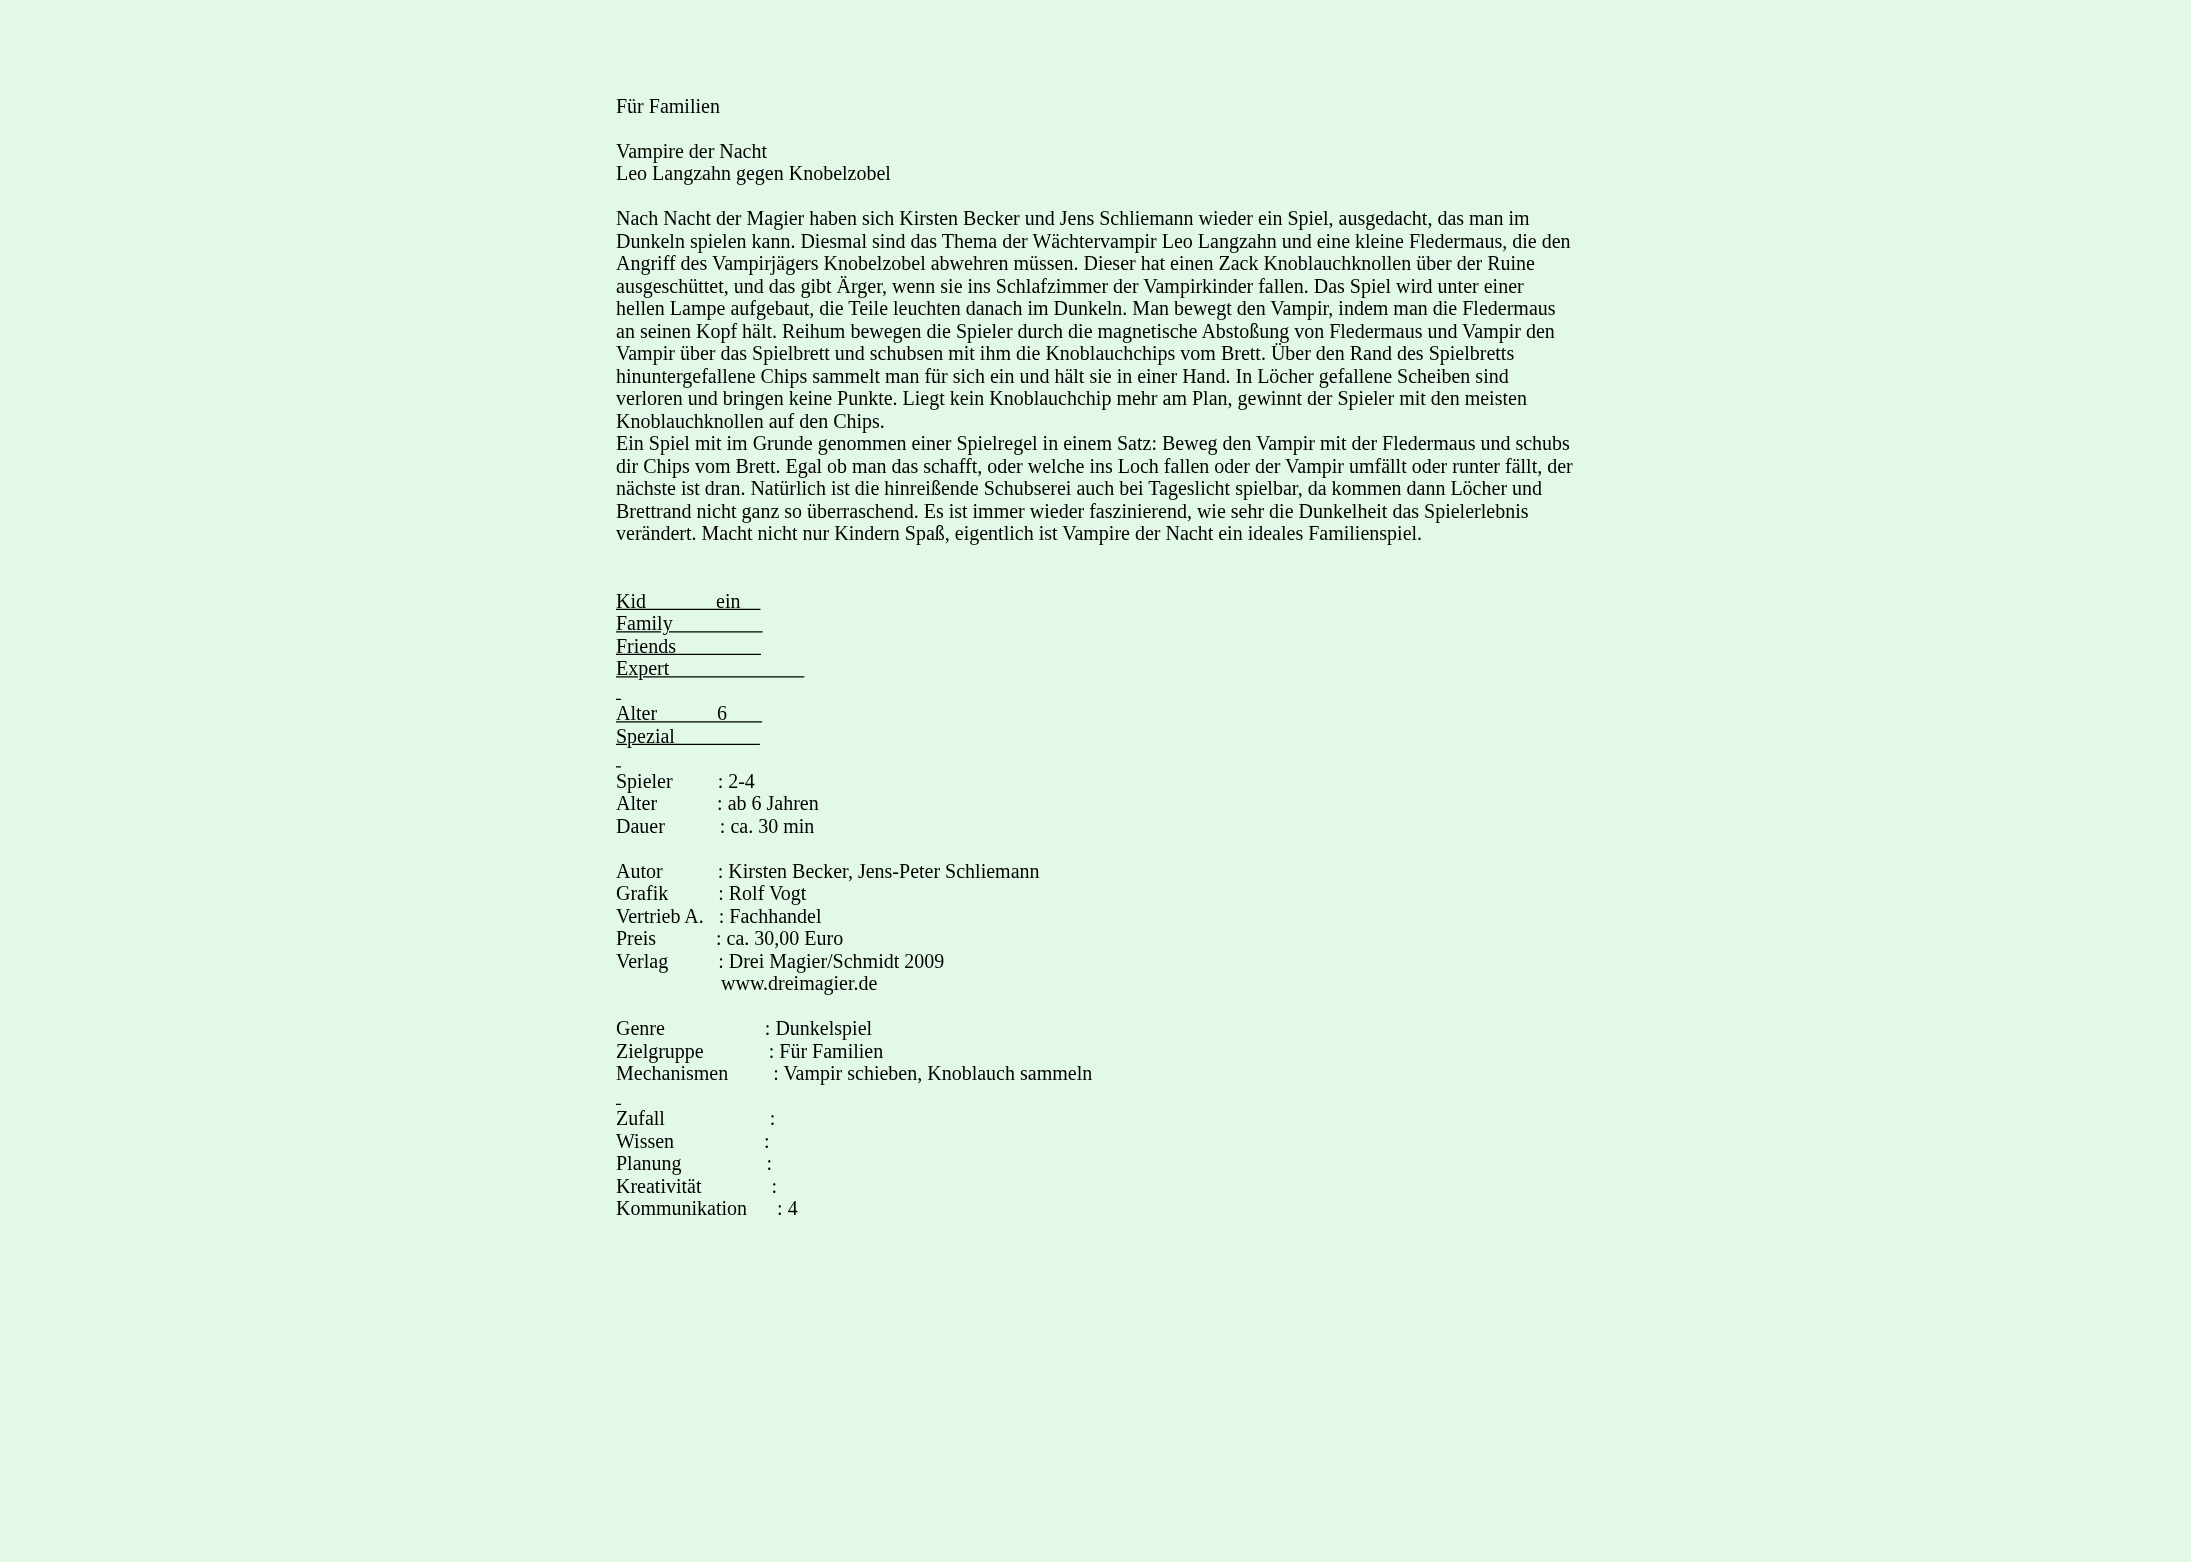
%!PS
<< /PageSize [2191 1562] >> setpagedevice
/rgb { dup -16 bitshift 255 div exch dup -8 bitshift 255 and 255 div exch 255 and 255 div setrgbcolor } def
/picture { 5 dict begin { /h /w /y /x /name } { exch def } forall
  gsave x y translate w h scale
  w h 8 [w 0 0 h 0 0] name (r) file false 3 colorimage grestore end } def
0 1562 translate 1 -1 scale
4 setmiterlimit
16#E3F9E7 rgb
0 0 2191 1562 rectfill
(pic1.raw) 616 99 957 1116 picture
showpage
